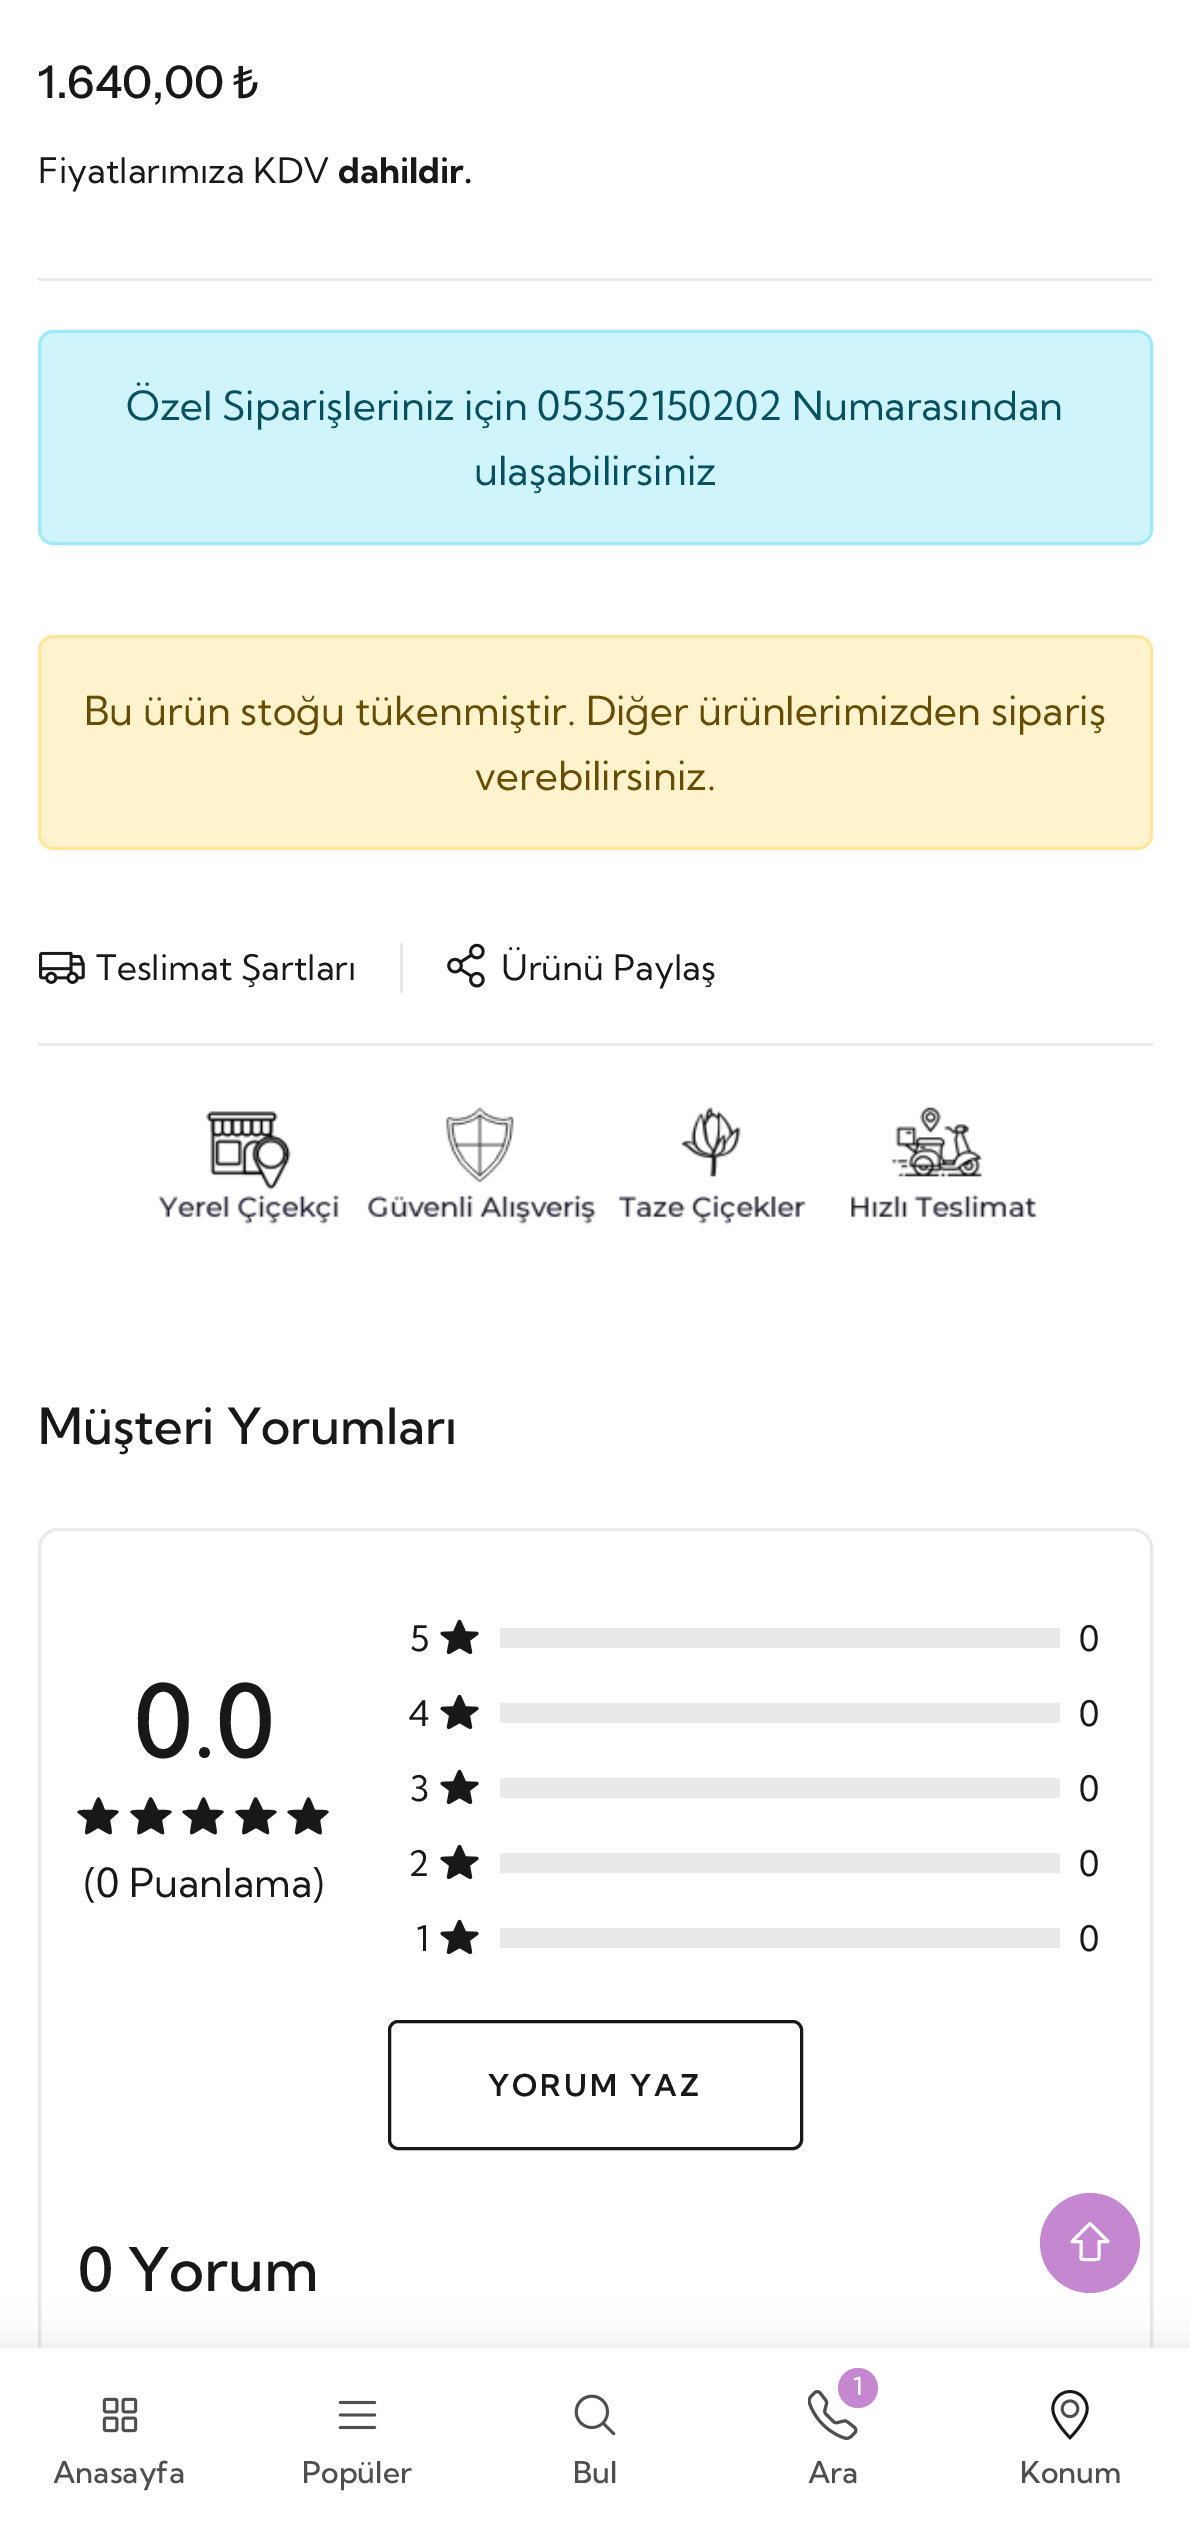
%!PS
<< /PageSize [1190 2522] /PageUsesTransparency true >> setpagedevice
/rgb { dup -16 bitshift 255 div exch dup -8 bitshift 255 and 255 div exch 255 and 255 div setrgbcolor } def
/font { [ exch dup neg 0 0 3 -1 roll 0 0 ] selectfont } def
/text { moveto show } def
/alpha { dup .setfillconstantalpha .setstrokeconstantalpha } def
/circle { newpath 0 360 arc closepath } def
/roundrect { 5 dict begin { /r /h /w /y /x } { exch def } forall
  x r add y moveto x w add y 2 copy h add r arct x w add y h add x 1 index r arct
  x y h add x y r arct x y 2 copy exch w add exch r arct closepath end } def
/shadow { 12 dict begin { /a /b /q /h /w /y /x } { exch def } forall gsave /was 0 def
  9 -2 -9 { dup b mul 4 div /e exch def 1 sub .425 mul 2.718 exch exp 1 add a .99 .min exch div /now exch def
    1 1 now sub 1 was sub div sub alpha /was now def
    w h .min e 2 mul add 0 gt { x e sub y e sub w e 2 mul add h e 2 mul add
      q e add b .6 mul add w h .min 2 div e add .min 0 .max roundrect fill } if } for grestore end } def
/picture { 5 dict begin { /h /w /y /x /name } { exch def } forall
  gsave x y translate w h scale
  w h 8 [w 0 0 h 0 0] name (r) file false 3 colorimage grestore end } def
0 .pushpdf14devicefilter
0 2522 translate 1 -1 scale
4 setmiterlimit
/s1 { /InstrumentSans-Medium 45 font 16#181818 rgb } def
/s2 { /NotoSans-Medium 45 font 16#181818 rgb } def
/s3 { /KumbhSans-Regular 35 font 16#181818 rgb } def
/s4 { /KumbhSans-Bold 35 font 16#181818 rgb } def
/s5 { /KumbhSans-Regular 40 font 16#055160 rgb } def
/s6 { /KumbhSans-Regular 40 font 16#664D03 rgb } def
/s7 { /KumbhSans-Medium 50 font 16#181818 rgb } def
/s8 { /KumbhSans-Medium 100 font 16#181818 rgb } def
/s9 { /KumbhSans-Regular 40 font 16#181818 rgb } def
/s10 { /KumbhSans-Medium 60 font 16#181818 rgb } def
/s11 { /KumbhSans-Medium 30 font 16#4D4E4F rgb } def
/s12 { /KumbhSans-Medium 25 font 16#FFFFFF rgb } def
16#FFFFFF rgb
0 0 1190 2522 rectfill
16#E9E9E9 rgb
38 278 1115 3 rectfill
s1
(1.640,00) 38 98 text
s2
(₺) 233 98 text
s3
(Fiyatlarımıza KDV) 38 183 text
s4
(dahildir.) 338 183 text
16#CFF4FC rgb
39.5 331.5 1112 212 13.5 roundrect gsave fill grestore
16#9EEAF9 rgb
3 setlinewidth
stroke
s5
(Özel Siparişleriniz için 05352150202 Numarasından) 126 420 text
(ulaşabilirsiniz) 474 485 text
16#FFF3CD rgb
39.5 636.5 1112 212 13.5 roundrect gsave fill grestore
16#FFE69C rgb
stroke
s6
(Bu ürün stoğu tükenmiştir. Diğer ürünlerimizden sipariş) 84 725 text
(verebilirsiniz.) 474 790 text
16#E9E9E9 rgb
38 1043 1115 3 rectfill
(pic1.raw) 39 951 46 33 picture
s3
(Teslimat Şartları) 96 980 text
16#E9E9E9 rgb
400 943 3 50 rectfill
(pic2.raw) 447 943 38 45 picture
s3
(Ürünü Paylaş) 501 980 text
(pic3.raw) 158 1107 880 118 picture
s7
(Müşteri Yorumları) 38 1444 text
16#E9E9E9 rgb
39.5 1529.5 1112 917 18.5 roundrect stroke
s8
(0.0) 134 1757 text
87 1820 moveto 78 1813 lineto 74 1809 91 1810 92 1810 curveto 99 1793 98 1793 105 1810 curveto 106 1810 122 1809 118 1813 curveto 110 1820 lineto 113 1838 114 1837 98 1828 curveto 83 1837 84 1838 87 1820 curveto closepath fill
139 1820 moveto 131 1813 lineto 127 1809 143 1810 144 1810 curveto 151 1793 150 1793 158 1810 curveto 158 1810 175 1809 171 1813 curveto 162 1820 lineto 165 1838 167 1837 151 1828 curveto 135 1837 136 1838 139 1820 curveto closepath fill
192 1820 moveto 183 1813 lineto 179 1809 196 1810 197 1810 curveto 204 1793 203 1793 210 1810 curveto 211 1810 227 1809 223 1813 curveto 215 1820 lineto 218 1838 219 1837 203 1828 curveto 188 1837 189 1838 192 1820 curveto closepath fill
244 1820 moveto 236 1813 lineto 232 1809 248 1810 249 1810 curveto 256 1793 255 1793 263 1810 curveto 263 1810 280 1809 276 1813 curveto 267 1820 lineto 270 1838 272 1837 256 1828 curveto 240 1837 241 1838 244 1820 curveto closepath fill
297 1820 moveto 288 1813 lineto 284 1809 301 1810 302 1810 curveto 309 1793 308 1793 315 1810 curveto 316 1810 332 1809 328 1813 curveto 320 1820 lineto 323 1838 324 1837 308 1828 curveto 293 1837 294 1838 297 1820 curveto closepath fill
s9
(\(0 Puanlama\)) 84 1897 text
s3
(5) 410 1651 text
(pic4.raw) 440 1619 39 36 picture
16#E9E9E9 rgb
500 1628 560 20 rectfill
s3
(0) 1079 1651 text
(4) 408 1726 text
(pic4.raw) 440 1694 39 36 picture
16#E9E9E9 rgb
500 1703 560 20 rectfill
s3
(0) 1079 1726 text
(3) 410 1801 text
(pic4.raw) 440 1769 39 36 picture
16#E9E9E9 rgb
500 1778 560 20 rectfill
s3
(0) 1079 1801 text
(2) 408 1876 text
(pic4.raw) 440 1844 39 36 picture
16#E9E9E9 rgb
500 1853 560 20 rectfill
s3
(0) 1079 1876 text
(1) 416 1951 text
(pic4.raw) 440 1919 39 36 picture
16#E9E9E9 rgb
500 1928 560 20 rectfill
s3
(0) 1079 1951 text
389.5 2021.5 412 127 8.5 roundrect stroke
/KumbhSans-SemiBold 30 font
488 2096 moveto 3 0 (YORUM YAZ) ashow
s10
(0 Yorum) 78 2291 text
16#404857 rgb
-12 2348 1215 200 0 22.5 0.15 shadow
16#FFFFFF rgb
0 2348 1190 174 rectfill
(pic5.raw) 102 2397 36 36 picture
s11
(Anasayfa) 53 2483 text
(pic6.raw) 338 2400 39 30 picture
(Popüler) 302 2483 text
(pic7.raw) 574 2394 42 42 picture
(Bul) 573 2483 text
(pic8.raw) 808 2390 50 50 picture
16#C687D1 rgb
858 2388 20 circle fill
s12
(1) 853 2395 text
s11
(Ara) 808 2483 text
(pic9.raw) 1051 2390 38 50 picture
(Konum) 1020 2483 text
16#C687D1 rgb
1090 2243 50 circle fill
16#FFFFFF rgb
1 setlinecap
1 setlinejoin
1072 2241.5 moveto 1090 2223.5 lineto 1108 2241.5 lineto 1099 2241.5 lineto 1099 2255 lineto 1099 2259.5 1099.5 2259.5 1095 2259.5 curveto 1085 2259.5 lineto 1080.5 2259.5 1081 2259.5 1081 2255 curveto 1081 2241.5 lineto closepath stroke
.poppdf14devicefilter showpage
